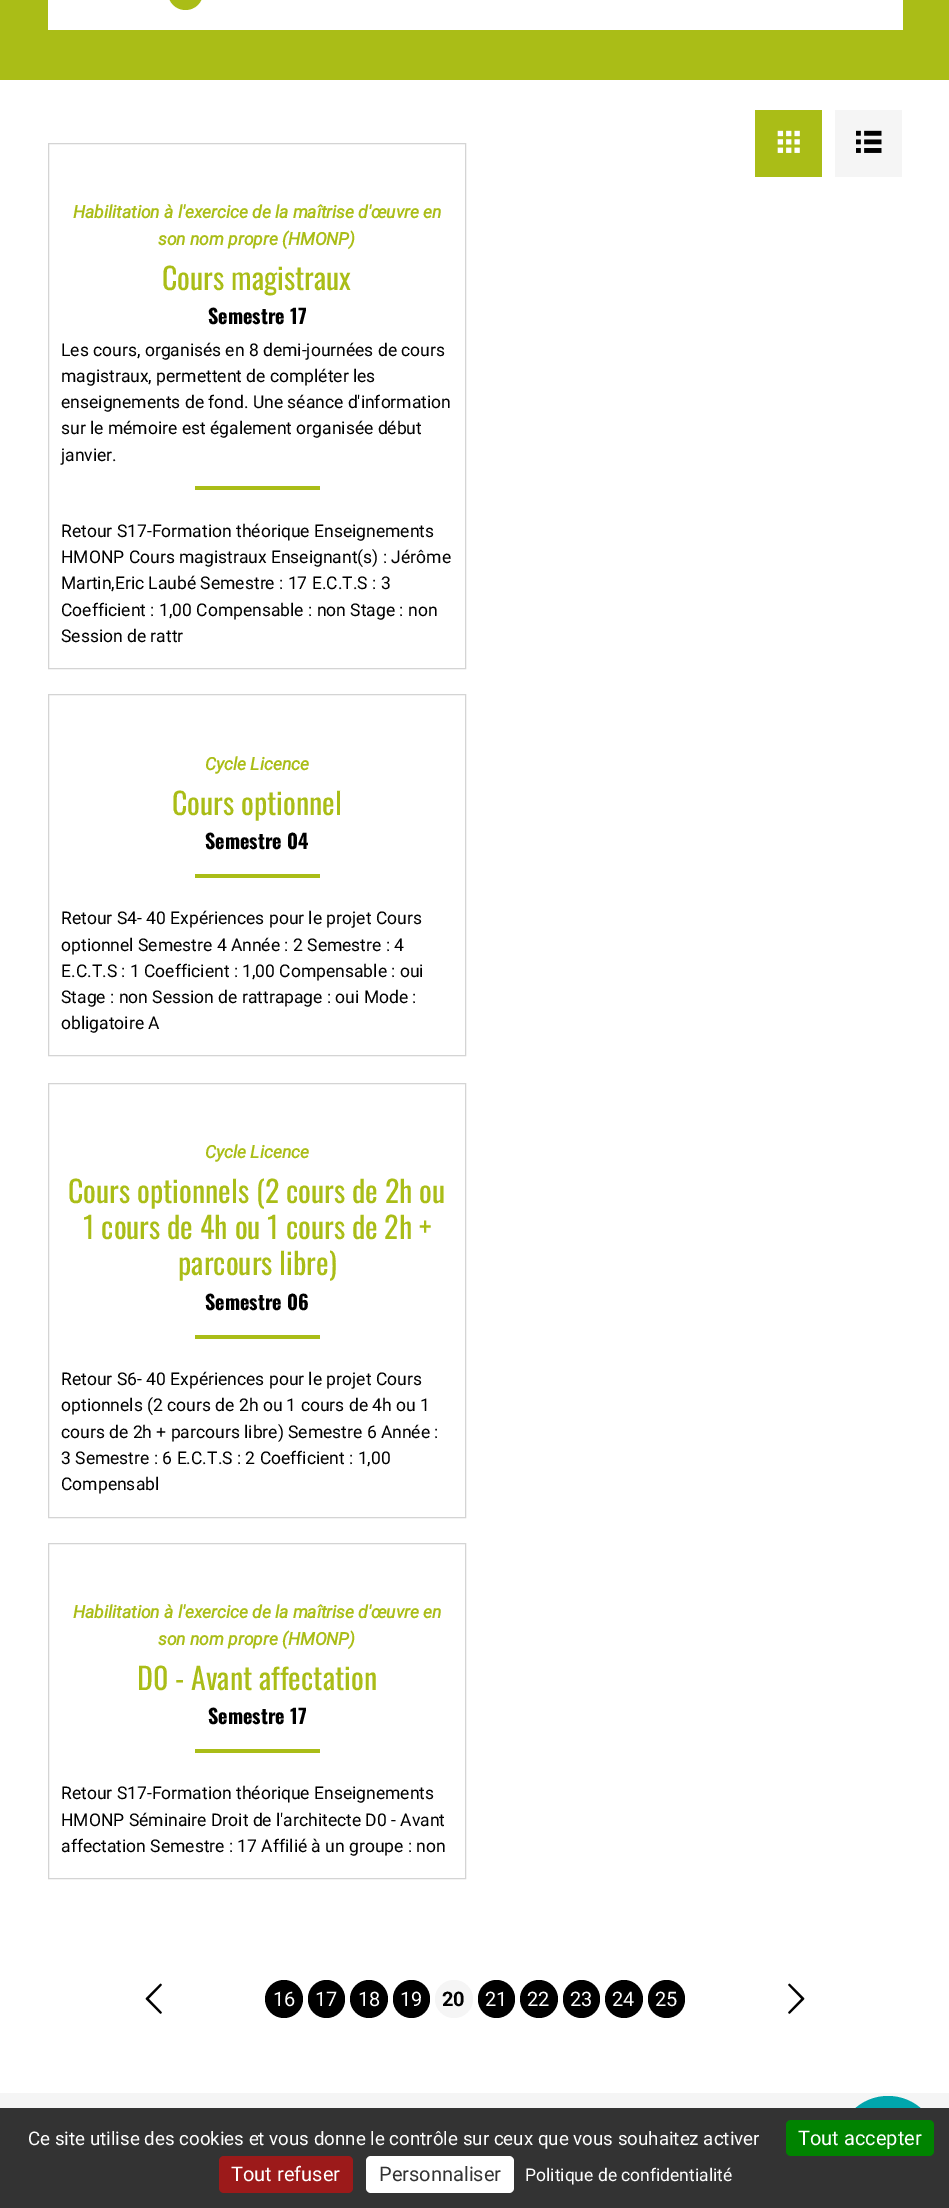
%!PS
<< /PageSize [949 2208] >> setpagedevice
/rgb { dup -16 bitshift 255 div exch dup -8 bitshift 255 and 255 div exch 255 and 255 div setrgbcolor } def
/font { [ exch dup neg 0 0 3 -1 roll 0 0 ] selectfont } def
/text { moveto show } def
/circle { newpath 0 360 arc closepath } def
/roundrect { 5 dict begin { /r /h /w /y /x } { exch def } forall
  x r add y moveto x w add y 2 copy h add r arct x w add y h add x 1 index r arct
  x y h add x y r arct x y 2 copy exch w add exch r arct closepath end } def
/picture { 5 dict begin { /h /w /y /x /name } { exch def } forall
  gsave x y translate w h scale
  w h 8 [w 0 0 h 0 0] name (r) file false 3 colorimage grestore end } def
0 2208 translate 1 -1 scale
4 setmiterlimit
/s1 { /Roboto-BoldItalic 17.5 font 16#AABD17 rgb } def
/s2 { /Oswald-Regular 30 font 16#AABD17 rgb } def
/s3 { /Oswald-Bold 20 font 16#000000 rgb } def
/s4 { /Roboto-Regular 17.5 font 16#000000 rgb } def
/s5 { /Roboto-Regular 20 font 16#FFFFFF rgb } def
/s6 { /Roboto-Bold 20 font 16#000000 rgb } def
/s7 { /Roboto-Regular 18.75 font 16#FFFFFF rgb } def
/s8 { /Roboto-Regular 20 font 16#333333 rgb } def
/s9 { /Roboto-Regular 17.5 font 16#FFFFFF rgb } def
16#FFFFFF rgb
0 0 949 2208 rectfill
16#AABD17 rgb
0 0 949 80 rectfill
16#FFFFFF rgb
48 0 855 30 rectfill
16#AABD17 rgb
168 -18 35 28 17.5 roundrect fill
755 110 67 67 rectfill
(pic1.raw) 777 130 23 23 picture
16#F5F5F5 rgb
835 110 67 67 rectfill
(pic2.raw) 856 130 26 23 picture
16#D4D4D4 rgb
48.5 143.5 417 525 rectstroke
s1
(Habilitation à l'exercice de la maîtrise d'œuvre en) 73 218 text
(son nom propre \(HMONP\)) 158 245 text
s2
(Cours magistraux) 162 290 text
s3
(Semestre 17) 208 324 text
s4
(Les cours, organisés en 8 demi-journées de cours) 61 356 text
(magistraux, permettent de compléter les) 61 382 text
(enseignements de fond. Une séance d'information) 61 408 text
(sur le mémoire est également organisée début) 61 434 text
(janvier.) 61 461 text
16#AABD17 rgb
195 486 125 4 rectfill
s4
(Retour S17-Formation théorique Enseignements) 61 537 text
(HMONP Cours magistraux Enseignant\(s\) : Jérôme) 61 563 text
(Martin,Eric Laubé Semestre : 17 E.C.T.S : 3) 61 589 text
(Coefficient : 1,00 Compensable : non Stage : non) 61 616 text
(Session de rattr) 61 642 text
16#D4D4D4 rgb
48.5 694.5 417 361 rectstroke
s1
(Cycle Licence) 205 770 text
s2
(Cours optionnel) 172 815 text
s3
(Semestre 04) 205 849 text
16#AABD17 rgb
195 874 125 4 rectfill
s4
(Retour S4- 40 Expériences pour le projet Cours) 61 924 text
(optionnel Semestre 4 Année : 2 Semestre : 4) 61 951 text
(E.C.T.S : 1 Coefficient : 1,00 Compensable : oui) 61 977 text
(Stage : non Session de rattrapage : oui Mode :) 61 1003 text
(obligatoire A) 61 1029 text
16#D4D4D4 rgb
48.5 1083.5 417 434 rectstroke
s1
(Cycle Licence) 205 1158 text
s2
(Cours optionnels \(2 cours de 2h ou) 68 1203 text
(1 cours de 4h ou 1 cours de 2h +) 83 1239 text
(parcours libre\)) 178 1275 text
s3
(Semestre 06) 205 1310 text
16#AABD17 rgb
195 1335 125 4 rectfill
s4
(Retour S6- 40 Expériences pour le projet Cours) 61 1385 text
(optionnels \(2 cours de 2h ou 1 cours de 4h ou 1) 61 1411 text
(cours de 2h + parcours libre\) Semestre 6 Année :) 61 1438 text
(3 Semestre : 6 E.C.T.S : 2 Coefficient : 1,00) 61 1464 text
(Compensabl) 61 1490 text
16#D4D4D4 rgb
48.5 1543.5 417 335 rectstroke
s1
(Habilitation à l'exercice de la maîtrise d'œuvre en) 73 1618 text
(son nom propre \(HMONP\)) 158 1645 text
s2
(D0 - Avant affectation) 137 1690 text
s3
(Semestre 17) 208 1724 text
16#AABD17 rgb
195 1749 125 4 rectfill
s4
(Retour S17-Formation théorique Enseignements) 61 1799 text
(HMONP Séminaire Droit de l'architecte D0 - Avant) 61 1826 text
(affectation Semestre : 17 Affilié à un groupe : non) 61 1852 text
(pic3.raw) 145 1983 17 31 picture
284 1999 19 circle fill
s5
(16) 273 2006 text
16#000000 rgb
308 1980 37 38 18.5 roundrect fill
s5
(17) 315 2006 text
16#000000 rgb
369 1999 19 circle fill
s5
(18) 358 2006 text
16#000000 rgb
393 1980 37 38 18.5 roundrect fill
s5
(19) 400 2006 text
16#F5F5F5 rgb
454 1999 19 circle fill
s6
(20) 442 2006 text
478 1980 37 38 18.5 roundrect fill
s5
(21) 485 2006 text
16#000000 rgb
539 1999 19 circle fill
s5
(22) 527 2006 text
16#000000 rgb
563 1980 37 38 18.5 roundrect fill
s5
(23) 570 2006 text
16#000000 rgb
624 1999 19 circle fill
s5
(24) 612 2006 text
16#000000 rgb
648 1980 37 38 18.5 roundrect fill
s5
(25) 655 2006 text
(pic4.raw) 788 1983 17 31 picture
16#F5F5F5 rgb
0 2093 949 15 rectfill
16#00A5AC rgb
888 2146 50 circle fill
16#333333 rgb
0 2108 949 100 rectfill
s7
(Ce site utilise des cookies et vous donne le contrôle sur ceux que vous souhaitez activer) 28 2145 text
16#008300 rgb
786 2120 148 36 5 roundrect fill
s5
(Tout accepter) 798 2145 text
16#9C1A1A rgb
219 2156 134 37 5 roundrect fill
s5
(Tout refuser) 231 2181 text
366 2156 148 37 5 roundrect fill
s8
(Personnaliser) 379 2181 text
s9
(Politique de confidentialité) 525 2181 text
showpage
